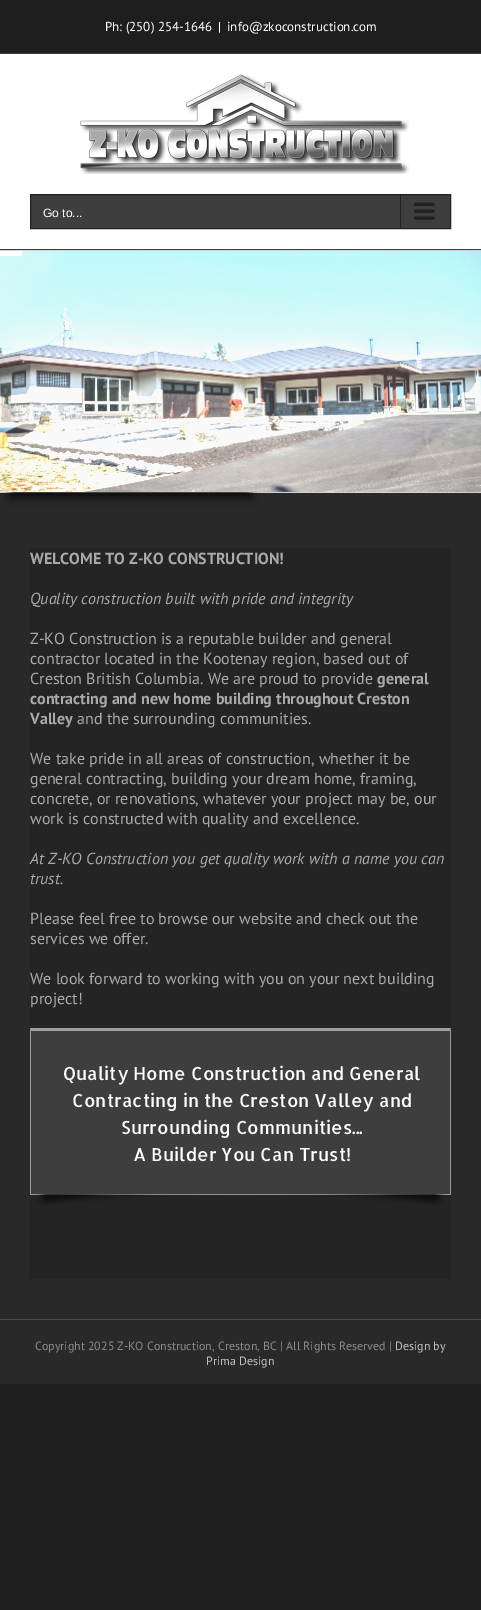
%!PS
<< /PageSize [481 1610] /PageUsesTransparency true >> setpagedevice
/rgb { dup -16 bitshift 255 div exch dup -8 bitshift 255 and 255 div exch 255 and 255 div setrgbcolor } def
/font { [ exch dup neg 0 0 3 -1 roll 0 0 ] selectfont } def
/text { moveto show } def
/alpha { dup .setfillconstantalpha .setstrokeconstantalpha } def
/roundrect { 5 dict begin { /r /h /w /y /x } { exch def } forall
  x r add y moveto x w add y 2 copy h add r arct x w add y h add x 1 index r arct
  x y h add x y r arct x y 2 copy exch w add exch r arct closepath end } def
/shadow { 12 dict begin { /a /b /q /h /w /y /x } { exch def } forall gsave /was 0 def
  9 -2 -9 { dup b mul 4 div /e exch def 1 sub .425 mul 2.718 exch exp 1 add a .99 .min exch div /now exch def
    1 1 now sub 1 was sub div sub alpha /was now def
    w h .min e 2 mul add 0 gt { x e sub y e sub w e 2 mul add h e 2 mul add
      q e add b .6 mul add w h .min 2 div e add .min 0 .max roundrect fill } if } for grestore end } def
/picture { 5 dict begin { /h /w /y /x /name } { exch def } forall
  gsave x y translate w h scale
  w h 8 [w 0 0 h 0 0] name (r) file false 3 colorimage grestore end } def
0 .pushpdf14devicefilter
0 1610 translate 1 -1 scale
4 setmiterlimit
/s1 { /PTSans-Regular 13 font 16#FFFFFF rgb } def
/s2 { /LiberationSans-Regular 12 font 16#FFFFFF rgb } def
/s3 { /PTSans-Bold 16 font 16#AAA9A9 rgb } def
/s4 { /PTSans-Italic 16 font 16#AAA9A9 rgb } def
/s5 { /PTSans-Regular 16 font 16#AAA9A9 rgb } def
/s6 { /Allerta-Regular 18 font 16#FFFFFF rgb } def
/s7 { /PTSans-Regular 12 font 16#8C8989 rgb } def
/s8 { /PTSans-Regular 12 font 16#BFBFBF rgb } def
16#1E1E1E rgb
0 0 481 1610 rectfill
16#29292A rgb
0 251 481 1133 rectfill
16#3E3E3E rgb
0 53 481 1 rectfill
s1
(Ph: \(250\) 254-1646) 105 31 text
(|) 218 31 text
(info@zkoconstruction.com) 227 31 text
0 54 481 195 rectfill
16#3E3E3E rgb
0 249 481 1 rectfill
(pic1.raw) 80 74 329 100 picture
30.5 194.5 moveto 450.5 194.5 lineto 450.5 228.5 lineto 30.5 228.5 lineto closepath gsave fill grestore
16#212122 rgb
stroke
s2
(Go to...) 43 217 text
16#212122 rgb
400 195 1 33 rectfill
(pic2.raw) 414 202 21 18 picture
16#D2D3D4 rgb
0 250 481 1 rectfill
0 492 481 1 rectfill
gsave
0 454 moveto 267 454 lineto 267 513 lineto 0 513 lineto closepath 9.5 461.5 moveto 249.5 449 lineto 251 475.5 lineto 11 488 lineto closepath eoclip newpath
16#000000 rgb
10 470 241 27 0 5 0.8 shadow
grestore
(pic3.raw) 0 251 481 241 picture
16#FFFFFF rgb
0 251 22 5 rectfill
16#242424 rgb
30 548 421 731 rectfill
s3
(WELCOME TO Z-KO CONSTRUCTION!) 30 564 text
s4
(Quality construction built with pride and integrity) 30 604 text
s5
(Z-KO Construction is a reputable builder and general) 30 644 text
(contractor located in the Kootenay region, based out of) 30 664 text
(Creston British Columbia. We are proud to provide) 30 684 text
s3
(general) 377 684 text
(contracting and new home building throughout Creston) 30 704 text
(Valley) 30 724 text
s5
(and the surrounding communities.) 77 724 text
(We take pride in all areas of construction, whether it be) 30 764 text
(general contracting, building your dream home, framing,) 30 784 text
(concrete, or renovations, whatever your project may be, our) 30 804 text
(work is constructed with quality and excellence.) 30 824 text
s4
(At Z-KO Construction you get quality work with a name you can) 30 864 text
(trust.) 30 884 text
s5
(Please feel free to browse our website and check out the) 30 924 text
(services we offer.) 30 944 text
(We look forward to working with you on your next building) 30 984 text
(project!) 30 1004 text
16#3E3E3E rgb
31 1031 419 163 rectfill
16#9E9E9E rgb
30 1028 moveto 451 1028 lineto 450 1031 lineto 31 1031 lineto closepath fill
16#999999 rgb
451 1028 moveto 451 1195 lineto 450 1194 lineto 450 1031 lineto closepath fill
30 1194 421 1 rectfill
30 1195 moveto 30 1028 lineto 31 1031 lineto 31 1194 lineto closepath fill
s6
(Quality Home Construction and General) 63 1080 text
(Contracting in the Creston Valley and) 72 1107 text
(Surrounding Communities...) 121 1134 text
(A Builder You Can Trust!) 133 1161 text
(pic4.raw) 35 1194 411 11 picture
16#4B4C4D rgb
0 1319 481 1 rectfill
s7
(Copyright 2025 Z-KO Construction, Creston, BC | All Rights Reserved |) 35 1350 text
s8
(Design by) 395 1350 text
(Prima Design) 206 1365 text
.poppdf14devicefilter showpage
